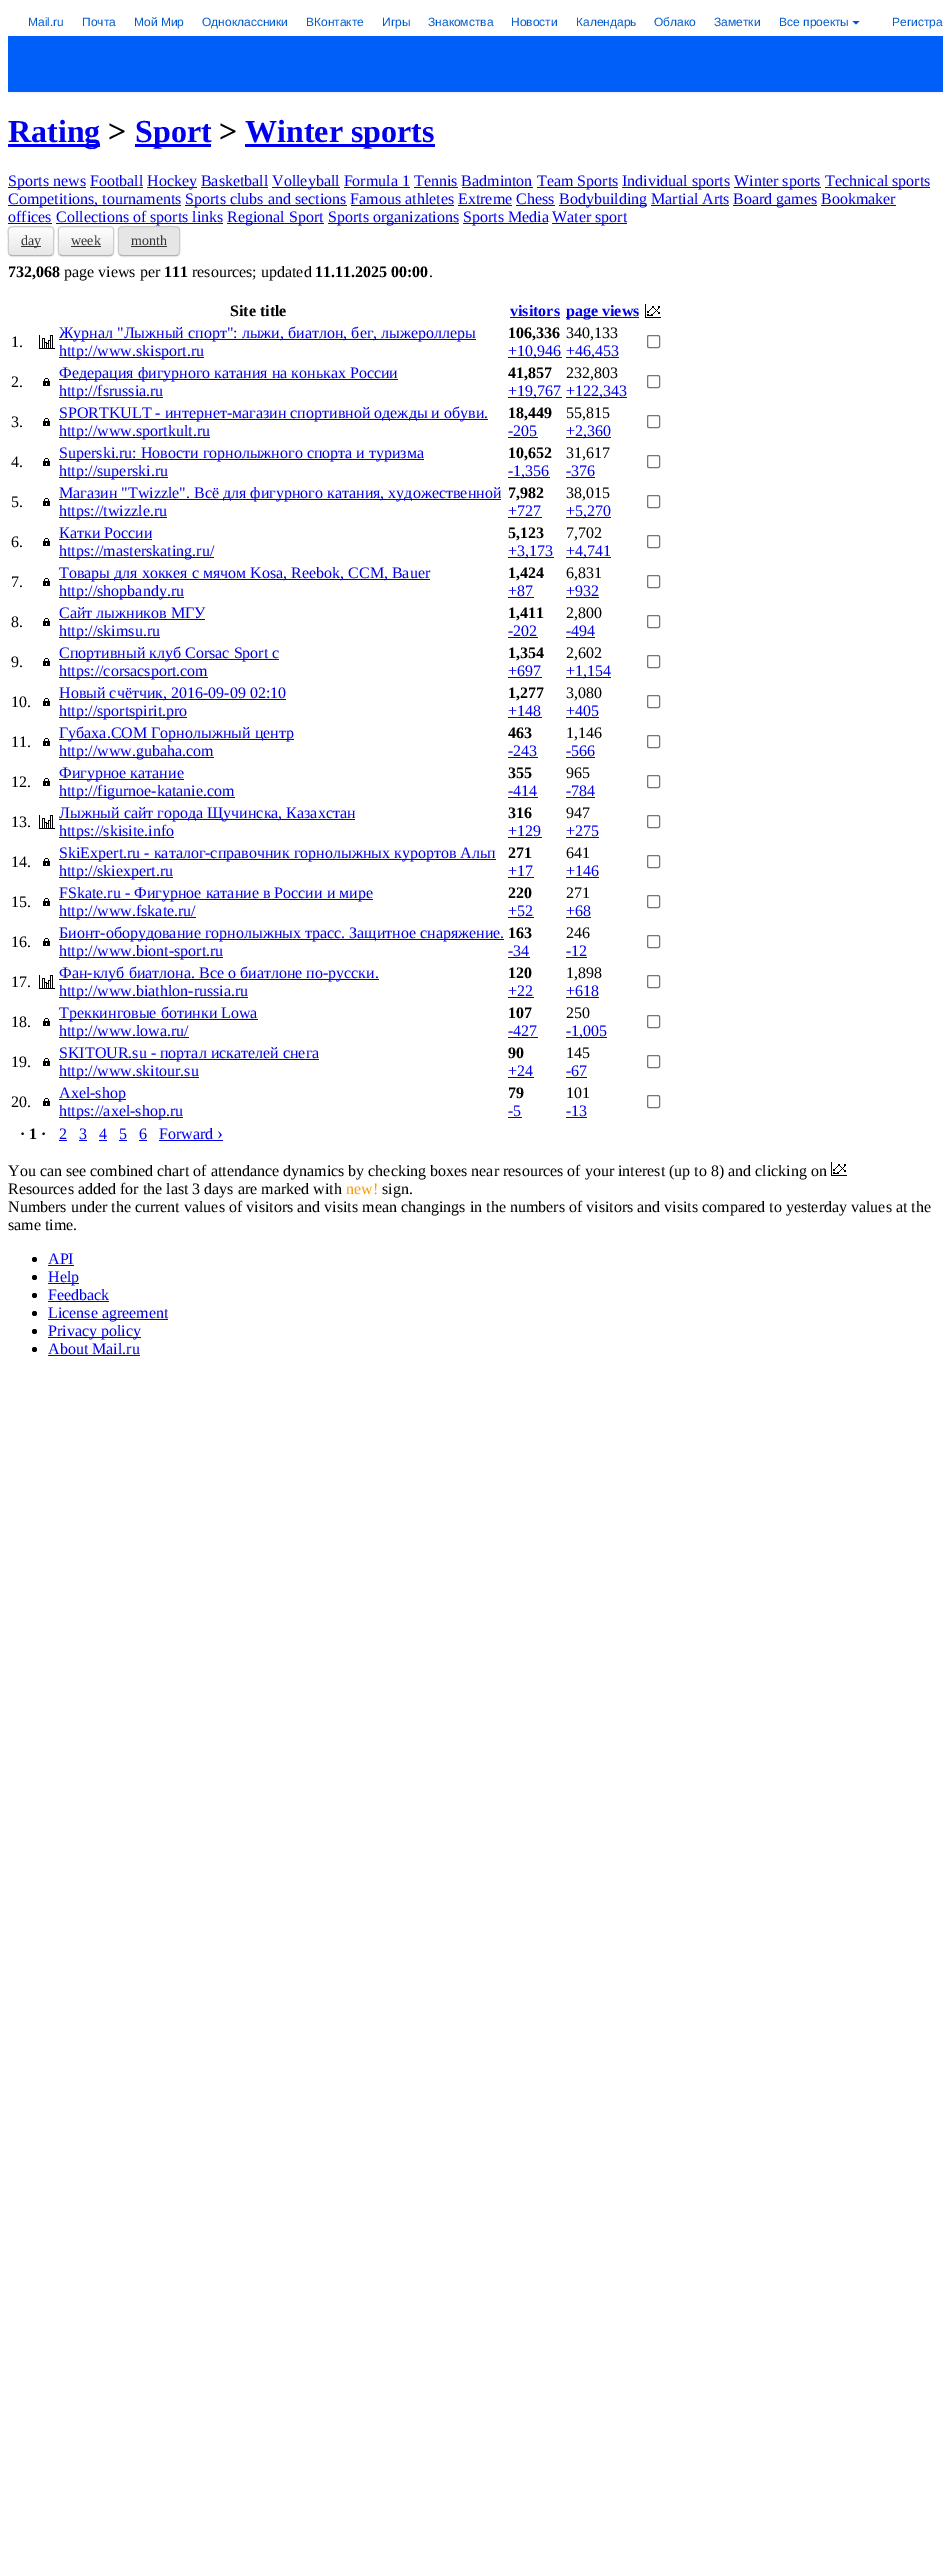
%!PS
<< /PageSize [943 2563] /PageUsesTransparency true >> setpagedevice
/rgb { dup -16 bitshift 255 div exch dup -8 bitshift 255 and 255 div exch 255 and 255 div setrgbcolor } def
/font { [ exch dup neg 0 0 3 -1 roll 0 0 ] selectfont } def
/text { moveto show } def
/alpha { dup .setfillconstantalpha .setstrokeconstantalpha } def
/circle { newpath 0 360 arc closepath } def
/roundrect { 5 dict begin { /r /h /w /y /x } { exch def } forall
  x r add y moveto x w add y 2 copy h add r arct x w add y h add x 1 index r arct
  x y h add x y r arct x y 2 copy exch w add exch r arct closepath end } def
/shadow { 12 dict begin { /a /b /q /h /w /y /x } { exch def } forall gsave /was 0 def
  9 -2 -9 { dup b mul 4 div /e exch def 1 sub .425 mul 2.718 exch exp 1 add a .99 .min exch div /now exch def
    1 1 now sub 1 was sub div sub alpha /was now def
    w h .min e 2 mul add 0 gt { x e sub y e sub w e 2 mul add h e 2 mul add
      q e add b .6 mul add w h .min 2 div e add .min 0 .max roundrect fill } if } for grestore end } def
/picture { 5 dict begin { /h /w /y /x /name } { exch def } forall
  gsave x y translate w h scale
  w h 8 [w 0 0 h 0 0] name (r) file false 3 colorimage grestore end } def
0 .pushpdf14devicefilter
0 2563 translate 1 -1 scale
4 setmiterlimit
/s1 { /LiberationSans-Regular 12 font 16#005BD1 rgb } def
/s2 { /LiberationSerif-Bold 32 font 16#0000EE rgb } def
/s3 { /LiberationSerif-Bold 32 font 16#000000 rgb } def
/s4 { /LiberationSerif-Regular 16 font 16#0000EE rgb } def
/s5 { /LiberationSerif-Regular 14 font 16#333333 rgb } def
/s6 { /LiberationSerif-Bold 16 font 16#000000 rgb } def
/s7 { /LiberationSerif-Regular 16 font 16#000000 rgb } def
/s8 { /LiberationSerif-Bold 16 font 16#0000EE rgb } def
/s9 { /LiberationSerif-Regular 18 font 16#0000EE rgb } def
/s10 { /LiberationSerif-Regular 16 font 16#FF9900 rgb } def
16#FFFFFF rgb
0 0 943 2563 rectfill
s1
(Mail.ru) 28 26 text
(Почта) 82 26 text
(Мой Мир) 134 26 text
(Одноклассники) 202 26 text
(ВКонтакте) 306 26 text
(Игры) 382 26 text
(Знакомства) 428 26 text
(Новости) 511 26 text
(Календарь) 576 26 text
(Облако) 654 26 text
(Заметки) 714 26 text
(Все проекты) 779 26 text
852 21 moveto 860 21 lineto 856 25 lineto closepath fill
16#FFFFFF rgb
860 21 moveto 860 29 lineto 856 25 lineto closepath 852 29 moveto 852 21 lineto 856 25 lineto closepath fill
s1
(Регистра) 892 26 text
16#F5F5F5 rgb
8 92 935 2 rectfill
16#005FF9 rgb
8 36 935 56 rectfill
16#0000EE rgb
8 144 92 3 rectfill
s2
(Rating) 8 142 text
s3
(>) 108 142 text
16#0000EE rgb
135 144 76 3 rectfill
(Sport) 135 142 text
s3
(>) 219 142 text
16#0000EE rgb
245 144 190 3 rectfill
(Winter sports) 245 142 text
8 187 78 1 rectfill
s4
(Sports news Football) 8 186 text
147 187 50 1 rectfill
(Hockey Basketball) 147 186 text
272 187 68 1 rectfill
(Volleyball Formula 1 Tennis Badminton) 272 186 text
537 187 81 1 rectfill
(Team Sports) 537 186 text
622 187 108 1 rectfill
(Individual sports) 622 186 text
734 187 87 1 rectfill
(Winter sports) 734 186 text
825 187 105 1 rectfill
(Technical sports) 825 186 text
90 187 53 1 rectfill
201 187 67 1 rectfill
344 187 66 1 rectfill
414 187 44 1 rectfill
462 187 71 1 rectfill
8 205 173 1 rectfill
(Competitions, tournaments) 8 204 text
185 205 162 1 rectfill
(Sports clubs and sections Famous athletes Extreme Chess) 185 204 text
559 205 88 1 rectfill
(Bodybuilding Martial Arts) 559 204 text
733 205 84 1 rectfill
(Board games Bookmaker) 733 204 text
351 205 103 1 rectfill
458 205 54 1 rectfill
516 205 39 1 rectfill
651 205 78 1 rectfill
(offices) 8 222 text
821 205 75 1 rectfill
8 223 44 1 rectfill
56 223 167 1 rectfill
(Collections of sports links) 56 222 text
227 223 97 1 rectfill
(Regional Sport) 227 222 text
328 223 131 1 rectfill
(Sports organizations) 328 222 text
463 223 85 1 rectfill
(Sports Media) 463 222 text
552 223 75 1 rectfill
(Water sport) 552 222 text
16#000000 rgb
8 227 46 30 4 1 0.05 shadow
16#F5F5F5 rgb
8 226 46 30 4 roundrect fill
gsave
8 226 46 30 4 roundrect clip newpath
gsave 8 227 moveto 54 227 lineto 54 255 lineto 8 255 lineto closepath clip newpath
<< /ShadingType 2 /ColorSpace /DeviceRGB /Coords [31 227 31 255] /Extend [true true] /Function << /FunctionType 2 /Domain [0 1] /C0 [1 1 1] /C1 [0.902 0.902 0.902] /N 1 >> >> shfill grestore
grestore
16#B3B3B3 rgb
52.5 254.5 moveto 52 255 51 255.5 50 255.5 curveto 12 255.5 lineto 11 255.5 10 255 9.5 254.5 curveto stroke
16#CCCCCC rgb
9.5 254.5 moveto 7.5 252.5 8.5 244 8.5 241 curveto 8.5 227.5 5.5 226.5 18.5 226.5 curveto 43.5 226.5 lineto 56.5 226.5 53.5 227.5 53.5 241 curveto 53.5 244 54.5 252.5 52.5 254.5 curveto stroke
16#333333 rgb
21 246 20 1 rectfill
s5
(day) 21 245 text
16#000000 rgb
58 227 56 30 4 1 0.05 shadow
16#F5F5F5 rgb
58 226 56 30 4 roundrect fill
gsave
58 226 56 30 4 roundrect clip newpath
gsave 58 227 moveto 114 227 lineto 114 255 lineto 58 255 lineto closepath clip newpath
<< /ShadingType 2 /ColorSpace /DeviceRGB /Coords [86 227 86 255] /Extend [true true] /Function << /FunctionType 2 /Domain [0 1] /C0 [1 1 1] /C1 [0.902 0.902 0.902] /N 1 >> >> shfill grestore
grestore
16#FFFFFF rgb
62 228 moveto 110 228 lineto 112 228 113 229 113 231 curveto 113 225 106 227 102 227 curveto 70 227 lineto 66 227 59 225 59 231 curveto 59 229 60 228 62 228 curveto closepath fill
16#B3B3B3 rgb
112.5 254.5 moveto 110.5 255.5 lineto 61.5 255.5 lineto 59.5 254.5 lineto stroke
16#CCCCCC rgb
59.5 254.5 moveto 57.5 252.5 58.5 244 58.5 241 curveto 58.5 226 55.5 226.5 70 226.5 curveto 102 226.5 lineto 116.5 226.5 113.5 226 113.5 241 curveto 113.5 244 114.5 252.5 112.5 254.5 curveto stroke
s5
(week) 71 245 text
71 246 30 1 rectfill
16#000000 rgb
118 227 62 30 4 1 0.05 shadow
16#E6E6E6 rgb
118 226 62 30 4 roundrect fill
16#B3B3B3 rgb
178.5 254.5 moveto 176.5 255.5 lineto 121.5 255.5 lineto 119.5 254.5 lineto stroke
16#CCCCCC rgb
119.5 254.5 moveto 117.5 252.5 118.5 244 118.5 241 curveto 118.5 225.5 116 226.5 131 226.5 curveto 167 226.5 lineto 182 226.5 179.5 225.5 179.5 241 curveto 179.5 244 180.5 252.5 178.5 254.5 curveto stroke
s5
(month) 131 245 text
131 246 36 1 rectfill
s6
(732,068) 8 277 text
s7
(page views per) 64 277 text
s6
(111) 164 277 text
s7
(resources; updated) 192 277 text
s6
(11.11.2025 00:00) 315 277 text
s7
(.) 429 277 text
s6
(Site title) 230 316 text
s8
(visitors) 510 316 text
510 317 50 1 rectfill
566 317 73 1 rectfill
(page views) 566 316 text
(pic1.raw) 645 304 16 14 picture
s7
(1.) 11 347 text
(pic2.raw) 39 335 16 14 picture
16#0000EE rgb
59 339 417 1 rectfill
(Журнал "Лыжный спорт": лыжи, биатлон, бег, лыжероллеры) 59 338 text
59 357 145 1 rectfill
(http://www.skisport.ru) 59 356 text
s6
(106,336) 508 338 text
16#0000EE rgb
508 357 54 1 rectfill
s4
(+10,946) 508 356 text
s7
(340,133) 566 338 text
16#0000EE rgb
566 357 53 1 rectfill
(+46,453) 566 356 text
16#767676 rgb
647.5 335.5 12 12 1.5 roundrect stroke
s7
(2.) 11 387 text
(pic3.raw) 43 378 7 8 picture
16#0000EE rgb
59 379 339 1 rectfill
(Федерация фигурного катания на коньках России) 59 378 text
59 397 104 1 rectfill
(http://fsrussia.ru) 59 396 text
s6
(41,857) 508 378 text
16#0000EE rgb
508 397 54 1 rectfill
s4
(+19,767) 508 396 text
s7
(232,803) 566 378 text
16#0000EE rgb
566 397 61 1 rectfill
(+122,343) 566 396 text
16#767676 rgb
647.5 375.5 12 12 1.5 roundrect stroke
s7
(3.) 11 427 text
(pic3.raw) 43 418 7 8 picture
16#0000EE rgb
59 419 429 1 rectfill
(SPORTKULT - интернет-магазин спортивной одежды и обуви.) 59 418 text
59 437 151 1 rectfill
(http://www.sportkult.ru) 59 436 text
s6
(18,449) 508 418 text
s4
(-205) 508 436 text
508 437 30 1 rectfill
s7
(55,815) 566 418 text
16#0000EE rgb
566 437 45 1 rectfill
(+2,360) 566 436 text
16#767676 rgb
647.5 415.5 12 12 1.5 roundrect stroke
s7
(4.) 11 467 text
(pic3.raw) 43 458 7 8 picture
16#0000EE rgb
59 459 365 1 rectfill
(Superski.ru: Новости горнолыжного спорта и туризма) 59 458 text
59 477 109 1 rectfill
(http://superski.ru) 59 476 text
s6
(10,652) 508 458 text
16#0000EE rgb
508 477 42 1 rectfill
s4
(-1,356) 508 476 text
s7
(31,617) 566 458 text
s4
(-376) 566 476 text
566 477 29 1 rectfill
16#767676 rgb
647.5 455.5 12 12 1.5 roundrect stroke
s7
(5.) 11 507 text
(pic3.raw) 43 498 7 8 picture
16#0000EE rgb
59 499 442 1 rectfill
(Магазин "Twizzle". Всё для фигурного катания, художественной) 59 498 text
59 517 108 1 rectfill
(https://twizzle.ru) 59 516 text
s6
(7,982) 508 498 text
s4
(+727) 508 516 text
508 517 34 1 rectfill
s7
(38,015) 566 498 text
16#0000EE rgb
566 517 45 1 rectfill
(+5,270) 566 516 text
16#767676 rgb
647.5 495.5 12 12 1.5 roundrect stroke
s7
(6.) 11 547 text
(pic3.raw) 43 538 7 8 picture
s4
(Катки России) 59 538 text
59 539 93 1 rectfill
59 557 155 1 rectfill
(https://masterskating.ru/) 59 556 text
s6
(5,123) 508 538 text
16#0000EE rgb
508 557 46 1 rectfill
s4
(+3,173) 508 556 text
s7
(7,702) 566 538 text
16#0000EE rgb
566 557 45 1 rectfill
(+4,741) 566 556 text
16#767676 rgb
647.5 535.5 12 12 1.5 roundrect stroke
s7
(7.) 11 587 text
(pic3.raw) 43 578 7 8 picture
16#0000EE rgb
59 579 371 1 rectfill
(Товары для хоккея с мячом Kosa, Reebok, CCM, Bauer) 59 578 text
59 597 125 1 rectfill
(http://shopbandy.ru) 59 596 text
s6
(1,424) 508 578 text
s4
(+87) 508 596 text
508 597 26 1 rectfill
s7
(6,831) 566 578 text
s4
(+932) 566 596 text
566 597 33 1 rectfill
16#767676 rgb
647.5 575.5 12 12 1.5 roundrect stroke
s7
(8.) 11 627 text
(pic3.raw) 43 618 7 8 picture
s4
(Сайт лыжников МГУ) 59 618 text
59 619 146 1 rectfill
59 637 101 1 rectfill
(http://skimsu.ru) 59 636 text
s6
(1,411) 508 618 text
s4
(-202) 508 636 text
508 637 30 1 rectfill
s7
(2,800) 566 618 text
s4
(-494) 566 636 text
566 637 29 1 rectfill
16#767676 rgb
647.5 615.5 12 12 1.5 roundrect stroke
s7
(9.) 11 667 text
(pic3.raw) 43 658 7 8 picture
16#0000EE rgb
59 659 220 1 rectfill
(Спортивный клуб Corsac Sport c) 59 658 text
59 677 149 1 rectfill
(https://corsacsport.com) 59 676 text
s6
(1,354) 508 658 text
s4
(+697) 508 676 text
508 677 34 1 rectfill
s7
(2,602) 566 658 text
16#0000EE rgb
566 677 45 1 rectfill
(+1,154) 566 676 text
16#767676 rgb
647.5 655.5 12 12 1.5 roundrect stroke
s7
(10.) 11 707 text
(pic3.raw) 43 698 7 8 picture
16#0000EE rgb
59 699 227 1 rectfill
(Новый счётчик, 2016-09-09 02:10) 59 698 text
59 717 128 1 rectfill
(http://sportspirit.pro) 59 716 text
s6
(1,277) 508 698 text
s4
(+148) 508 716 text
508 717 34 1 rectfill
s7
(3,080) 566 698 text
s4
(+405) 566 716 text
566 717 33 1 rectfill
16#767676 rgb
647.5 695.5 12 12 1.5 roundrect stroke
s7
(11.) 11 747 text
(pic3.raw) 43 738 7 8 picture
16#0000EE rgb
59 739 235 1 rectfill
(Губаха.COM Горнолыжный центр) 59 738 text
59 757 155 1 rectfill
(http://www.gubaha.com) 59 756 text
s6
(463) 508 738 text
s4
(-243) 508 756 text
508 757 30 1 rectfill
s7
(1,146) 566 738 text
s4
(-566) 566 756 text
566 757 29 1 rectfill
16#767676 rgb
647.5 735.5 12 12 1.5 roundrect stroke
s7
(12.) 11 787 text
(pic3.raw) 43 778 7 8 picture
16#0000EE rgb
59 779 125 1 rectfill
(Фигурное катание) 59 778 text
59 797 176 1 rectfill
(http://figurnoe-katanie.com) 59 796 text
s6
(355) 508 778 text
s4
(-414) 508 796 text
508 797 30 1 rectfill
s7
(965) 566 778 text
s4
(-784) 566 796 text
566 797 29 1 rectfill
16#767676 rgb
647.5 775.5 12 12 1.5 roundrect stroke
s7
(13.) 11 827 text
(pic2.raw) 39 815 16 14 picture
16#0000EE rgb
59 819 296 1 rectfill
(Лыжный сайт города Щучинска, Казахстан) 59 818 text
59 837 115 1 rectfill
(https://skisite.info) 59 836 text
s6
(316) 508 818 text
s4
(+129) 508 836 text
508 837 34 1 rectfill
s7
(947) 566 818 text
s4
(+275) 566 836 text
566 837 33 1 rectfill
16#767676 rgb
647.5 815.5 12 12 1.5 roundrect stroke
s7
(14.) 11 867 text
(pic3.raw) 43 858 7 8 picture
16#0000EE rgb
59 859 437 1 rectfill
(SkiExpert.ru - каталог-справочник горнолыжных курортов Альп) 59 858 text
59 877 114 1 rectfill
(http://skiexpert.ru) 59 876 text
s6
(271) 508 858 text
s4
(+17) 508 876 text
508 877 26 1 rectfill
s7
(641) 566 858 text
s4
(+146) 566 876 text
566 877 33 1 rectfill
16#767676 rgb
647.5 855.5 12 12 1.5 roundrect stroke
s7
(15.) 11 907 text
(pic3.raw) 43 898 7 8 picture
16#0000EE rgb
59 899 314 1 rectfill
(FSkate.ru - Фигурное катание в России и мире) 59 898 text
59 917 137 1 rectfill
(http://www.fskate.ru/) 59 916 text
s6
(220) 508 898 text
s4
(+52) 508 916 text
508 917 26 1 rectfill
s7
(271) 566 898 text
s4
(+68) 566 916 text
566 917 25 1 rectfill
16#767676 rgb
647.5 895.5 12 12 1.5 roundrect stroke
s7
(16.) 11 947 text
(pic3.raw) 43 938 7 8 picture
16#0000EE rgb
59 939 445 1 rectfill
(Бионт-оборудование горнолыжных трасс. Защитное снаряжение.) 59 938 text
59 957 164 1 rectfill
(http://www.biont-sport.ru) 59 956 text
s6
(163) 508 938 text
s4
(-34) 508 956 text
508 957 22 1 rectfill
s7
(246) 566 938 text
s4
(-12) 566 956 text
566 957 21 1 rectfill
16#767676 rgb
647.5 935.5 12 12 1.5 roundrect stroke
s7
(17.) 11 987 text
(pic2.raw) 39 975 16 14 picture
16#0000EE rgb
59 979 320 1 rectfill
(Фан-клуб биатлона. Все о биатлоне по-русски.) 59 978 text
59 997 189 1 rectfill
(http://www.biathlon-russia.ru) 59 996 text
s6
(120) 508 978 text
s4
(+22) 508 996 text
508 997 26 1 rectfill
s7
(1,898) 566 978 text
s4
(+618) 566 996 text
566 997 33 1 rectfill
16#767676 rgb
647.5 975.5 12 12 1.5 roundrect stroke
s7
(18.) 11 1027 text
(pic3.raw) 43 1018 7 8 picture
16#0000EE rgb
59 1019 199 1 rectfill
(Треккинговые ботинки Lowa) 59 1018 text
59 1037 130 1 rectfill
(http://www.lowa.ru/) 59 1036 text
s6
(107) 508 1018 text
s4
(-427) 508 1036 text
508 1037 30 1 rectfill
s7
(250) 566 1018 text
16#0000EE rgb
566 1037 41 1 rectfill
(-1,005) 566 1036 text
16#767676 rgb
647.5 1015.5 12 12 1.5 roundrect stroke
s7
(19.) 11 1067 text
(pic3.raw) 43 1058 7 8 picture
16#0000EE rgb
59 1059 260 1 rectfill
(SKITOUR.su - портал искателей снега) 59 1058 text
59 1077 140 1 rectfill
(http://www.skitour.su) 59 1076 text
s6
(90) 508 1058 text
s4
(+24) 508 1076 text
508 1077 26 1 rectfill
s7
(145) 566 1058 text
s4
(-67) 566 1076 text
566 1077 21 1 rectfill
16#767676 rgb
647.5 1055.5 12 12 1.5 roundrect stroke
s7
(20.) 11 1107 text
(pic3.raw) 43 1098 7 8 picture
16#0000EE rgb
59 1099 67 1 rectfill
(Axel-shop) 59 1098 text
59 1117 124 1 rectfill
(https://axel-shop.ru) 59 1116 text
s6
(79) 508 1098 text
s4
(-5) 508 1116 text
508 1117 14 1 rectfill
s7
(101) 566 1098 text
s4
(-13) 566 1116 text
566 1117 21 1 rectfill
16#767676 rgb
647.5 1095.5 12 12 1.5 roundrect stroke
s6
(· 1 ·) 20 1139 text
s4
(2) 59 1139 text
59 1140 8 1 rectfill
(3) 79 1139 text
79 1140 8 1 rectfill
(4) 99 1139 text
99 1140 8 1 rectfill
(5) 119 1139 text
119 1140 8 1 rectfill
(6) 139 1139 text
139 1140 8 1 rectfill
(Forward) 159 1139 text
s9
(›) 217 1139 text
159 1140 64 1 rectfill
s7
(You can see combined chart of attendance dynamics by checking boxes near resources of your interest \(up to 8\) and clicking on) 8 1176 text
(pic1.raw) 831 1162 16 14 picture
(Resources added for the last 3 days are marked with) 8 1194 text
s10
(new!) 346 1194 text
s7
(sign.) 382 1194 text
(Numbers under the current values of visitors and visits mean changings in the numbers of visitors and visits compared to yesterday values at the) 8 1212 text
(same time.) 8 1230 text
34.5 1259.5 2.5 circle fill
s4
(API) 48 1264 text
48 1265 26 1 rectfill
16#000000 rgb
34.5 1277.5 2.5 circle fill
16#0000EE rgb
48 1283 31 1 rectfill
(Help) 48 1282 text
16#000000 rgb
34.5 1295.5 2.5 circle fill
s4
(Feedback) 48 1300 text
48 1301 61 1 rectfill
16#000000 rgb
34.5 1313.5 2.5 circle fill
16#0000EE rgb
48 1319 120 1 rectfill
(License agreement) 48 1318 text
16#000000 rgb
34.5 1331.5 2.5 circle fill
16#0000EE rgb
48 1337 93 1 rectfill
(Privacy policy) 48 1336 text
16#000000 rgb
34.5 1349.5 2.5 circle fill
s4
(About Mail.ru) 48 1354 text
48 1355 92 1 rectfill
.poppdf14devicefilter showpage
